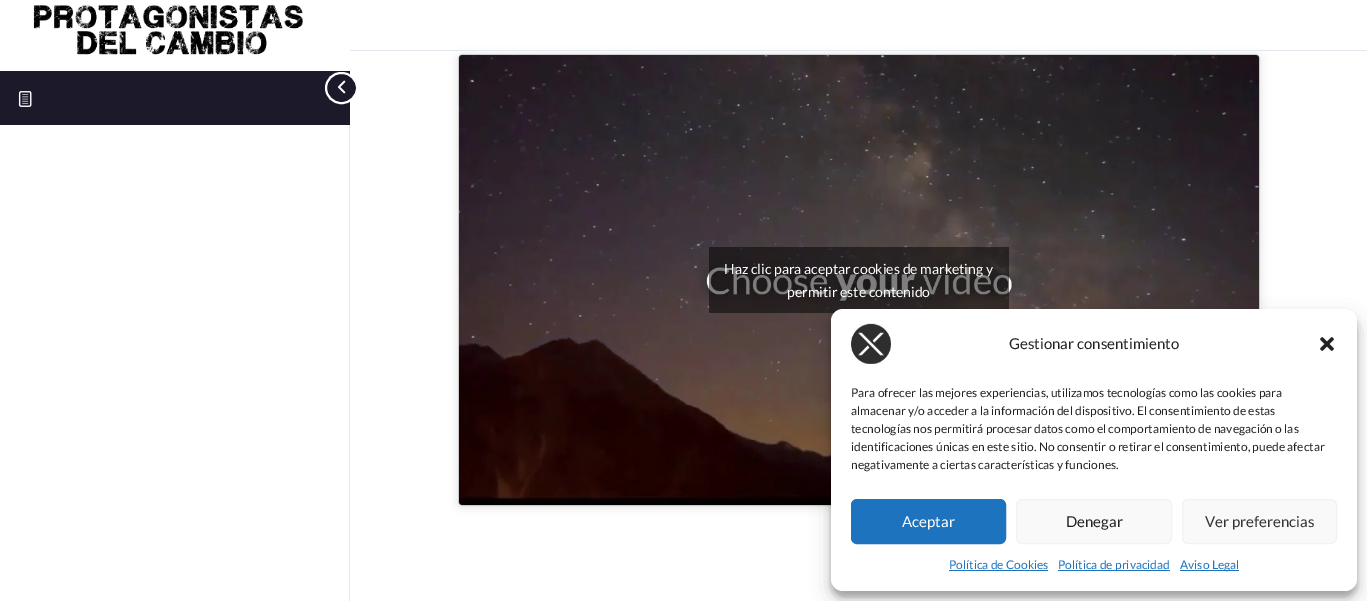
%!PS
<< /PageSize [1367 601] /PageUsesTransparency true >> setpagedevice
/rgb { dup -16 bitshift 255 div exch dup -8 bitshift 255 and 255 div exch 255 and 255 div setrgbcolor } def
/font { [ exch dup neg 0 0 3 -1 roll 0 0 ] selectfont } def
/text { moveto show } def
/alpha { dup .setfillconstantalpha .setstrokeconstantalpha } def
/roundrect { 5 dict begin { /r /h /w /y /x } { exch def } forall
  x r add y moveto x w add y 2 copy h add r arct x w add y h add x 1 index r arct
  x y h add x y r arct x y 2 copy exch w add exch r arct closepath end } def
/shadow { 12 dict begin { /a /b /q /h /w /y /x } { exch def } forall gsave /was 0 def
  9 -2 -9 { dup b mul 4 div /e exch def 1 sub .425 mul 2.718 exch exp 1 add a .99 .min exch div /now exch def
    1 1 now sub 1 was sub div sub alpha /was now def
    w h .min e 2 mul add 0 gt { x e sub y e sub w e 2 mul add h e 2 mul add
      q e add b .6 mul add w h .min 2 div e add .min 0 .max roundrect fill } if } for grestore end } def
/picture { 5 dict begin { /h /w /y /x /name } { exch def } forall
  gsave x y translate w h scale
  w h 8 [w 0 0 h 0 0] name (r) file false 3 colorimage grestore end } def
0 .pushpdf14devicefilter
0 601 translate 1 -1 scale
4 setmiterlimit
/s1 { /Lato-Regular 14 font 16#FFFFFF rgb } def
/s2 { /Lato-Regular 15 font 16#222222 rgb } def
/s3 { /Lato-Regular 12 font 16#222222 rgb } def
/s4 { /Lato-Regular 15 font 16#FFFFFF rgb } def
/s5 { /Lato-Regular 15 font 16#333333 rgb } def
/s6 { /Lato-Regular 12 font 16#1E73BE rgb } def
16#FFFFFF rgb
0 0 1367 601 rectfill
16#E2E7ED rgb
349 125 1 476 rectfill
16#1C192B rgb
0 71 350 54 rectfill
(pic1.raw) 18 91 14 16 picture
326 73 31 30 15 roundrect gsave fill grestore
16#FFFFFF rgb
2 setlinewidth
stroke
(pic2.raw) 338 80 8 14 picture
16#000000 rgb
459 56 800 450 3 5 0.15 shadow
16#FFFFFF rgb
462 49 794 1 rectfill
16#E2E7ED rgb
350 50 1017 1 rectfill
(pic3.raw) 33 5 270 50 picture
16#000000 rgb
459 55 800 450 3 0.5 0.5 shadow
(pic4.raw) 459 55 800 450 picture
0.5 alpha
709 247 300 66 rectfill
1 alpha
s1
(Haz clic para aceptar cookies de marketing y) 724 274 text
(permitir este contenido) 787 297 text
16#000000 rgb
831 315 526 282 12 3 0.23 shadow
831 319 526 282 12 10 0.19 shadow
16#FFFFFF rgb
831 309 526 282 12 roundrect fill
(pic5.raw) 851 323 40 41 picture
s2
(Gestionar consentimiento) 1009 349 text
(pic6.raw) 1320 337 14 14 picture
s3
(Para ofrecer las mejores experiencias, utilizamos tecnologías como las cookies para) 851 397 text
(almacenar y/o acceder a la información del dispositivo. El consentimiento de estas) 851 415 text
(tecnologías nos permitirá procesar datos como el comportamiento de navegación o las) 851 433 text
(identificaciones únicas en este sitio. No consentir o retirar el consentimiento, puede afectar) 851 451 text
(negativamente a ciertas características y funciones.) 851 469 text
16#1E73BE rgb
851.5 499.5 154 44 5.5 roundrect gsave fill grestore
1 setlinewidth
stroke
s4
(Aceptar) 902 527 text
16#F9F9F9 rgb
1016.5 499.5 155 44 5.5 roundrect gsave fill grestore
16#F2F2F2 rgb
stroke
s2
(Denegar) 1066 527 text
16#F9F9F9 rgb
1182.5 499.5 154 44 5.5 roundrect gsave fill grestore
16#F2F2F2 rgb
stroke
s5
(Ver preferencias) 1205 527 text
s6
(Política de Cookies) 949 569 text
949 570 99 1 rectfill
1058 570 112 1 rectfill
(Política de privacidad) 1058 569 text
1180 570 59 1 rectfill
(Aviso Legal) 1180 569 text
.poppdf14devicefilter showpage
